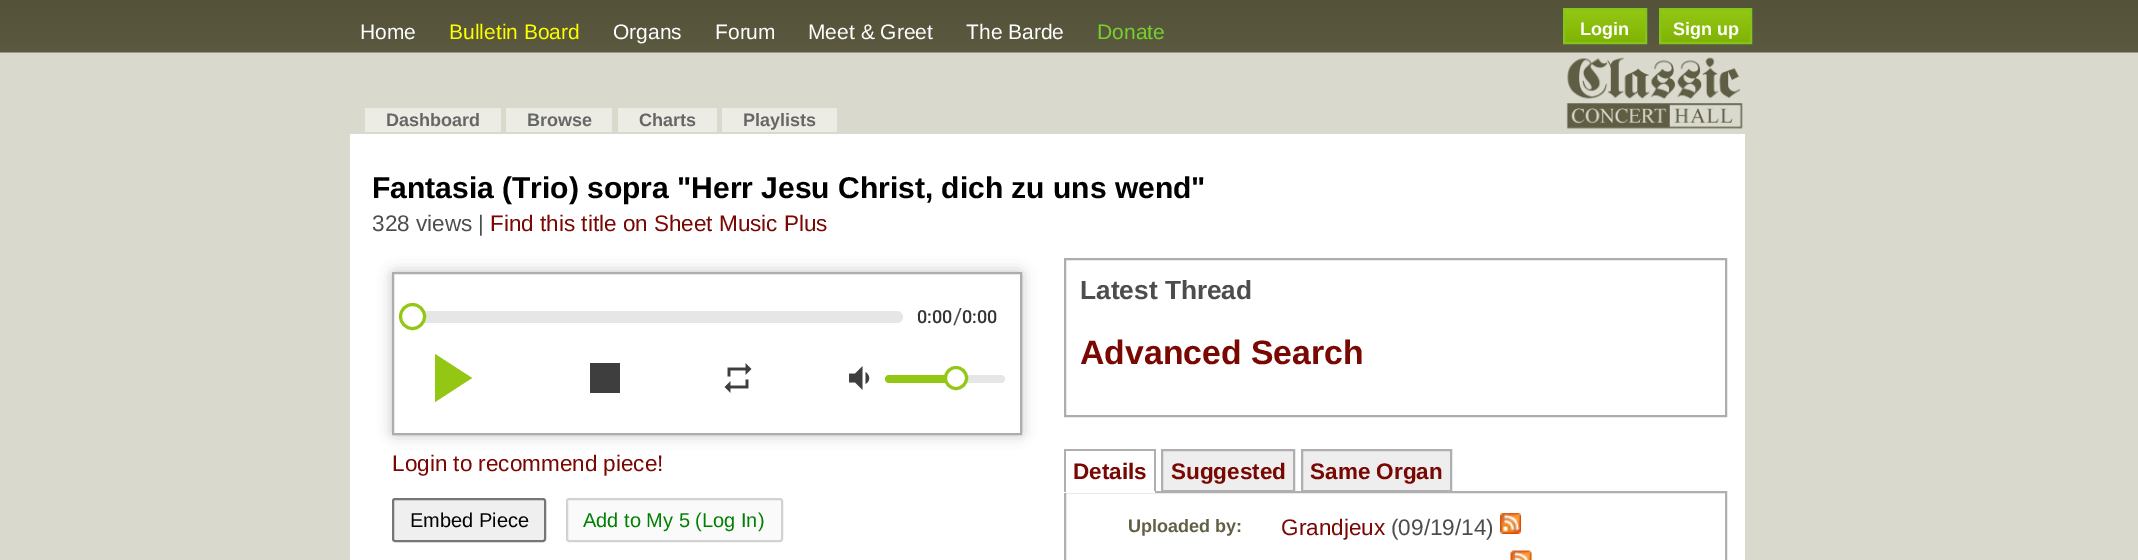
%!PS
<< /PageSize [2138 560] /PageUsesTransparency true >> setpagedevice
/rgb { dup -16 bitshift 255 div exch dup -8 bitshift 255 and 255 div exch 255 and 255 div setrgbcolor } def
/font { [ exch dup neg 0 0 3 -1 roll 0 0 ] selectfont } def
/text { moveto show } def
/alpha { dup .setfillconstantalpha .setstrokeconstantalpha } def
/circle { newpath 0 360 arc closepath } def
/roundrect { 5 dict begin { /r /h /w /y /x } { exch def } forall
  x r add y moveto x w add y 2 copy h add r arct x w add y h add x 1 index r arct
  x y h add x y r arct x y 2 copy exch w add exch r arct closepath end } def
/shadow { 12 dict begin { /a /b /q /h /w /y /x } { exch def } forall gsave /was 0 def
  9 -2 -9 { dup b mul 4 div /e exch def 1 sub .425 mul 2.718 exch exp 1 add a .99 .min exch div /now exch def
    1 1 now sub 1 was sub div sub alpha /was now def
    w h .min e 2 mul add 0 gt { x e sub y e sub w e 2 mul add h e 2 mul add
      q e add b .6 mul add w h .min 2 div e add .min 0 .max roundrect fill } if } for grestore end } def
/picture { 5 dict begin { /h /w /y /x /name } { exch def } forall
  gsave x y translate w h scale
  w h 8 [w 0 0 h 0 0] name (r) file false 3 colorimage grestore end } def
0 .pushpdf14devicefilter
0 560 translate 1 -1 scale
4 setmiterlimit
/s1 { /LiberationSans-Regular 21 font 16#FFFFFF rgb } def
/s2 { /LiberationSans-Regular 21 font 16#FBFF00 rgb } def
/s3 { /LiberationSans-Regular 21 font 16#77D12C rgb } def
/s4 { /LiberationSans-Bold 18 font 16#FFFFFF rgb } def
/s5 { /LiberationSans-Bold 18 font 16#666666 rgb } def
/s6 { /LiberationSans-Bold 30 font 16#000000 rgb } def
/s7 { /LiberationSans-Regular 22.5 font 16#4D4D4D rgb } def
/s8 { /LiberationSans-Regular 22.5 font 16#790702 rgb } def
/s9 { /Roboto-Medium 18 font 16#333333 rgb } def
/s10 { /Roboto-Regular 22.5 font 16#4D4D4D rgb } def
/s11 { /LiberationSans-Regular 20 font 16#000000 rgb } def
/s12 { /LiberationSans-Regular 20 font 16#008000 rgb } def
/s13 { /LiberationSans-Bold 26.25 font 16#4D4D4D rgb } def
/s14 { /LiberationSans-Bold 33.75 font 16#790702 rgb } def
/s15 { /LiberationSans-Bold 22.5 font 16#790702 rgb } def
/s16 { /LiberationSans-Bold 18 font 16#615F46 rgb } def
16#DAD9CD rgb
0 0 2138 560 rectfill
(pic1.raw) 0 0 2138 53 picture
s1
(Home) 360 39 text
s2
(Bulletin Board) 449 39 text
s1
(Organs) 613 39 text
(Forum) 715 39 text
(Meet & Greet) 808 39 text
(The Barde) 966 39 text
s3
(Donate) 1097 39 text
gsave 1565 10 moveto 1645 10 lineto 1645 42 lineto 1565 42 lineto closepath clip newpath
<< /ShadingType 2 /ColorSpace /DeviceRGB /Coords [1565 9 1565 42] /Extend [true true] /Function << /FunctionType 3 /Domain [0 1] /Functions [<< /FunctionType 2 /Domain [0 1] /C0 [0.58 0.78 0.078] /C1 [0.58 0.78 0.078] /N 1 >> << /FunctionType 2 /Domain [0 1] /C0 [0.58 0.78 0.078] /C1 [0.506 0.702 0.016] /N 1 >>] /Bounds [0.05] /Encode [0 1 0 1] >> >> shfill grestore
16#83C41A rgb
2 setlinewidth
1564 9 82 34 rectstroke
s4
(Login) 1580 35 text
gsave 1661 10 moveto 1750 10 lineto 1750 42 lineto 1661 42 lineto closepath clip newpath
<< /ShadingType 2 /ColorSpace /DeviceRGB /Coords [1661 9 1661 42] /Extend [true true] /Function << /FunctionType 3 /Domain [0 1] /Functions [<< /FunctionType 2 /Domain [0 1] /C0 [0.58 0.78 0.078] /C1 [0.58 0.78 0.078] /N 1 >> << /FunctionType 2 /Domain [0 1] /C0 [0.58 0.78 0.078] /C1 [0.506 0.702 0.016] /N 1 >>] /Bounds [0.05] /Encode [0 1 0 1] >> >> shfill grestore
16#83C41A rgb
1660 9 91 34 rectstroke
s4
(Sign up) 1673 35 text
16#EDECE4 rgb
365 108 136 24 rectfill
s5
(Dashboard) 386 126 text
16#EDECE4 rgb
506 108 106 24 rectfill
s5
(Browse) 527 126 text
16#EDECE4 rgb
618 108 99 24 rectfill
s5
(Charts) 639 126 text
16#EDECE4 rgb
722 108 115 24 rectfill
s5
(Playlists) 743 126 text
(pic2.raw) 1566 57 177 72 picture
16#FFFFFF rgb
350 134 1395 426 rectfill
s6
(Fantasia \(Trio\) sopra "Herr Jesu Christ, dich zu uns wend") 372 198 text
s7
(328 views |) 372 231 text
s8
(Find this title on Sheet Music Plus) 490 231 text
16#C1C1C1 rgb
392 272 630 163 3 7 1 shadow
16#FFFFFF rgb
393 273 moveto 1021 273 lineto 1021 434 lineto 393 434 lineto closepath gsave fill grestore
16#ADADAD rgb
stroke
16#E6E6E6 rgb
416 311 487 12 6 roundrect fill
16#FFFFFF rgb
412.5 316.5 12 circle gsave fill grestore
16#94C714 rgb
3 setlinewidth
stroke
s9
(0:00) 917 323 text
s10
(/) 953 324 text
s9
(0:00) 962 323 text
16#94C714 rgb
435 354 moveto 472 378 lineto 435 402 lineto closepath fill
16#3E3E3E rgb
590 363 30 30 rectfill
(pic3.raw) 724 363 28 30 picture
(pic4.raw) 849 366 21 24 picture
16#E6E6E6 rgb
885 375 120 8 4 roundrect fill
16#94C714 rgb
889 375 moveto 957 375 lineto 957 383 lineto 889 383 lineto 887 383 885 381 885 379 curveto 885 377 887 375 889 375 curveto closepath fill
16#FFFFFF rgb
956 378 10.5 circle gsave fill grestore
16#94C714 rgb
stroke
s8
(Login to recommend piece!) 392 471 text
16#EFEFEF rgb
393 499 152 42 2 roundrect gsave fill grestore
16#767676 rgb
2 setlinewidth
stroke
s11
(Embed Piece) 410 527 text
16#FAFAFA rgb
567 499 215 42 2 roundrect gsave fill grestore
16#D2D2D2 rgb
stroke
s12
(Add to My 5 \(Log In\)) 583 527 text
16#ADADAD rgb
1065 259 661 157 rectstroke
s13
(Latest Thread) 1080 299 text
s14
(Advanced Search) 1080 364 text
s15
(Details) 1073 479 text
16#AFAFAF rgb
1064 449 91 2 rectfill
1065 492 661 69 rectstroke
1154 449 2 43 rectfill
16#FFFFFF rgb
1064 491 91 2 rectfill
16#AFAFAF rgb
1064 449 2 43 rectfill
16#EEEEEE rgb
1162 450 moveto 1294 450 lineto 1294 491 lineto 1162 491 lineto closepath gsave fill grestore
16#AFAFAF rgb
stroke
s15
(Suggested) 1171 479 text
16#EEEEEE rgb
1302 450 moveto 1451 450 lineto 1451 491 lineto 1302 491 lineto closepath gsave fill grestore
16#AFAFAF rgb
stroke
s15
(Same Organ) 1310 479 text
s16
(Uploaded by:) 1128 532 text
s8
(Grandjeux) 1281 535 text
s7
(\(09/19/14\)) 1391 535 text
(pic5.raw) 1500 513 21 21 picture
(pic6.raw) 1510 550 22 10 picture
.poppdf14devicefilter showpage
